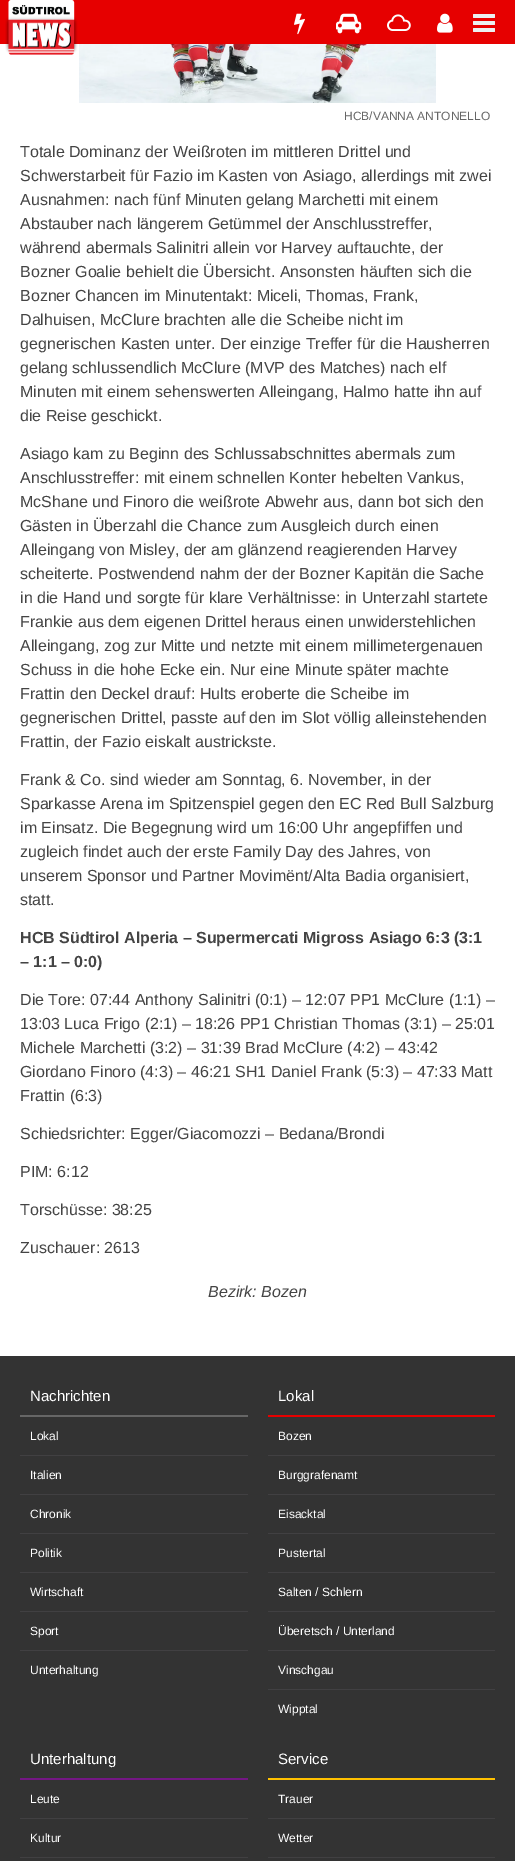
%!PS
<< /PageSize [515 1861] >> setpagedevice
/rgb { dup -16 bitshift 255 div exch dup -8 bitshift 255 and 255 div exch 255 and 255 div setrgbcolor } def
/font { [ exch dup neg 0 0 3 -1 roll 0 0 ] selectfont } def
/text { moveto show } def
/roundrect { 5 dict begin { /r /h /w /y /x } { exch def } forall
  x r add y moveto x w add y 2 copy h add r arct x w add y h add x 1 index r arct
  x y h add x y r arct x y 2 copy exch w add exch r arct closepath end } def
/picture { 5 dict begin { /h /w /y /x /name } { exch def } forall
  gsave x y translate w h scale
  w h 8 [w 0 0 h 0 0] name (r) file false 3 colorimage grestore end } def
0 1861 translate 1 -1 scale
4 setmiterlimit
/s1 { /LiberationSans-Regular 12 font 16#666666 rgb } def
/s2 { /LiberationSans-Regular 16 font 16#444444 rgb } def
/s3 { /LiberationSans-Bold 16 font 16#444444 rgb } def
/s4 { /LiberationSans-Italic 16 font 16#444444 rgb } def
/s5 { /LiberationSans-Regular 15 font 16#FFFFFF rgb } def
/s6 { /LiberationSans-Regular 12 font 16#FFFFFF rgb } def
16#FFFFFF rgb
0 0 515 1861 rectfill
16#E60000 rgb
0 0 515 44 rectfill
(pic1.raw) 5 0 73 55 picture
(pic2.raw) 294 13 11 22 picture
(pic3.raw) 336 13 26 21 picture
(pic4.raw) 387 14 24 17 picture
(pic5.raw) 437 13 16 20 picture
16#ECF0F1 rgb
473 21 22 4 1 roundrect fill
473 14 22 4 1 roundrect fill
473 28 22 4 1 roundrect fill
(pic6.raw) 79 44 357 59 picture
s1
(HCB/VANNA ANTONELLO) 344 120 text
s2
(Totale Dominanz der Weißroten im mittleren Drittel und) 20 157 text
(Schwerstarbeit für Fazio im Kasten von Asiago, allerdings mit zwei) 20 181 text
(Ausnahmen: nach fünf Minuten gelang Marchetti mit einem) 20 205 text
(Abstauber nach längerem Getümmel der Anschlusstreffer,) 20 229 text
(während abermals Salinitri allein vor Harvey auftauchte, der) 20 253 text
(Bozner Goalie behielt die Übersicht. Ansonsten häuften sich die) 20 277 text
(Bozner Chancen im Minutentakt: Miceli, Thomas, Frank,) 20 301 text
(Dalhuisen, McClure brachten alle die Scheibe nicht im) 20 325 text
(gegnerischen Kasten unter. Der einzige Treffer für die Hausherren) 20 349 text
(gelang schlussendlich McClure \(MVP des Matches\) nach elf) 20 373 text
(Minuten mit einem sehenswerten Alleingang, Halmo hatte ihn auf) 20 397 text
(die Reise geschickt.) 20 421 text
(Asiago kam zu Beginn des Schlussabschnittes abermals zum) 20 459 text
(Anschlusstreffer: mit einem schnellen Konter hebelten Vankus,) 20 483 text
(McShane und Finoro die weißrote Abwehr aus, dann bot sich den) 20 507 text
(Gästen in Überzahl die Chance zum Ausgleich durch einen) 20 531 text
(Alleingang von Misley, der am glänzend reagierenden Harvey) 20 555 text
(scheiterte. Postwendend nahm der der Bozner Kapitän die Sache) 20 579 text
(in die Hand und sorgte für klare Verhältnisse: in Unterzahl startete) 20 603 text
(Frankie aus dem eigenen Drittel heraus einen unwiderstehlichen) 20 627 text
(Alleingang, zog zur Mitte und netzte mit einem millimetergenauen) 20 651 text
(Schuss in die hohe Ecke ein. Nur eine Minute später machte) 20 675 text
(Frattin den Deckel drauf: Hults eroberte die Scheibe im) 20 699 text
(gegnerischen Drittel, passte auf den im Slot völlig alleinstehenden) 20 723 text
(Frattin, der Fazio eiskalt austrickste.) 20 747 text
(Frank & Co. sind wieder am Sonntag, 6. November, in der) 20 785 text
(Sparkasse Arena im Spitzenspiel gegen den EC Red Bull Salzburg) 20 809 text
(im Einsatz. Die Begegnung wird um 16:00 Uhr angepfiffen und) 20 833 text
(zugleich findet auch der erste Family Day des Jahres, von) 20 857 text
(unserem Sponsor und Partner Movimënt/Alta Badia organisiert,) 20 881 text
(statt.) 20 905 text
s3
(HCB Südtirol Alperia – Supermercati Migross Asiago 6:3 \(3:1) 20 943 text
(– 1:1 – 0:0\)) 20 967 text
s2
(Die Tore: 07:44 Anthony Salinitri \(0:1\) – 12:07 PP1 McClure \(1:1\) –) 20 1005 text
(13:03 Luca Frigo \(2:1\) – 18:26 PP1 Christian Thomas \(3:1\) – 25:01) 20 1029 text
(Michele Marchetti \(3:2\) – 31:39 Brad McClure \(4:2\) – 43:42) 20 1053 text
(Giordano Finoro \(4:3\) – 46:21 SH1 Daniel Frank \(5:3\) – 47:33 Matt) 20 1077 text
(Frattin \(6:3\)) 20 1101 text
(Schiedsrichter: Egger/Giacomozzi – Bedana/Brondi) 20 1139 text
(PIM: 6:12) 20 1177 text
(Torschüsse: 38:25) 20 1215 text
(Zuschauer: 2613) 20 1253 text
s4
(Bezirk: Bozen) 208 1297 text
16#333333 rgb
0 1356 515 505 rectfill
s5
(Nachrichten) 30 1401 text
16#666666 rgb
20 1415 228 2 rectfill
s6
(Lokal) 30 1440 text
16#414042 rgb
20 1455 228 1 rectfill
s6
(Italien) 30 1479 text
16#414042 rgb
20 1494 228 1 rectfill
s6
(Chronik) 30 1518 text
16#414042 rgb
20 1533 228 1 rectfill
s6
(Politik) 30 1557 text
16#414042 rgb
20 1572 228 1 rectfill
s6
(Wirtschaft) 30 1596 text
16#414042 rgb
20 1611 228 1 rectfill
s6
(Sport) 30 1635 text
16#414042 rgb
20 1650 228 1 rectfill
s6
(Unterhaltung) 30 1674 text
s5
(Lokal) 278 1401 text
16#E60000 rgb
268 1415 227 2 rectfill
s6
(Bozen) 278 1440 text
16#414042 rgb
268 1455 227 1 rectfill
s6
(Burggrafenamt) 278 1479 text
16#414042 rgb
268 1494 227 1 rectfill
s6
(Eisacktal) 278 1518 text
16#414042 rgb
268 1533 227 1 rectfill
s6
(Pustertal) 278 1557 text
16#414042 rgb
268 1572 227 1 rectfill
s6
(Salten / Schlern) 278 1596 text
16#414042 rgb
268 1611 227 1 rectfill
s6
(Überetsch / Unterland) 278 1635 text
16#414042 rgb
268 1650 227 1 rectfill
s6
(Vinschgau) 278 1674 text
16#414042 rgb
268 1689 227 1 rectfill
s6
(Wipptal) 278 1713 text
s5
(Unterhaltung) 30 1764 text
16#741784 rgb
20 1778 228 2 rectfill
s6
(Leute) 30 1803 text
16#414042 rgb
20 1818 228 1 rectfill
s6
(Kultur) 30 1842 text
16#414042 rgb
20 1857 228 1 rectfill
s5
(Service) 278 1764 text
16#FFC000 rgb
268 1778 227 2 rectfill
s6
(Trauer) 278 1803 text
16#414042 rgb
268 1818 227 1 rectfill
s6
(Wetter) 278 1842 text
16#414042 rgb
268 1857 227 1 rectfill
showpage
